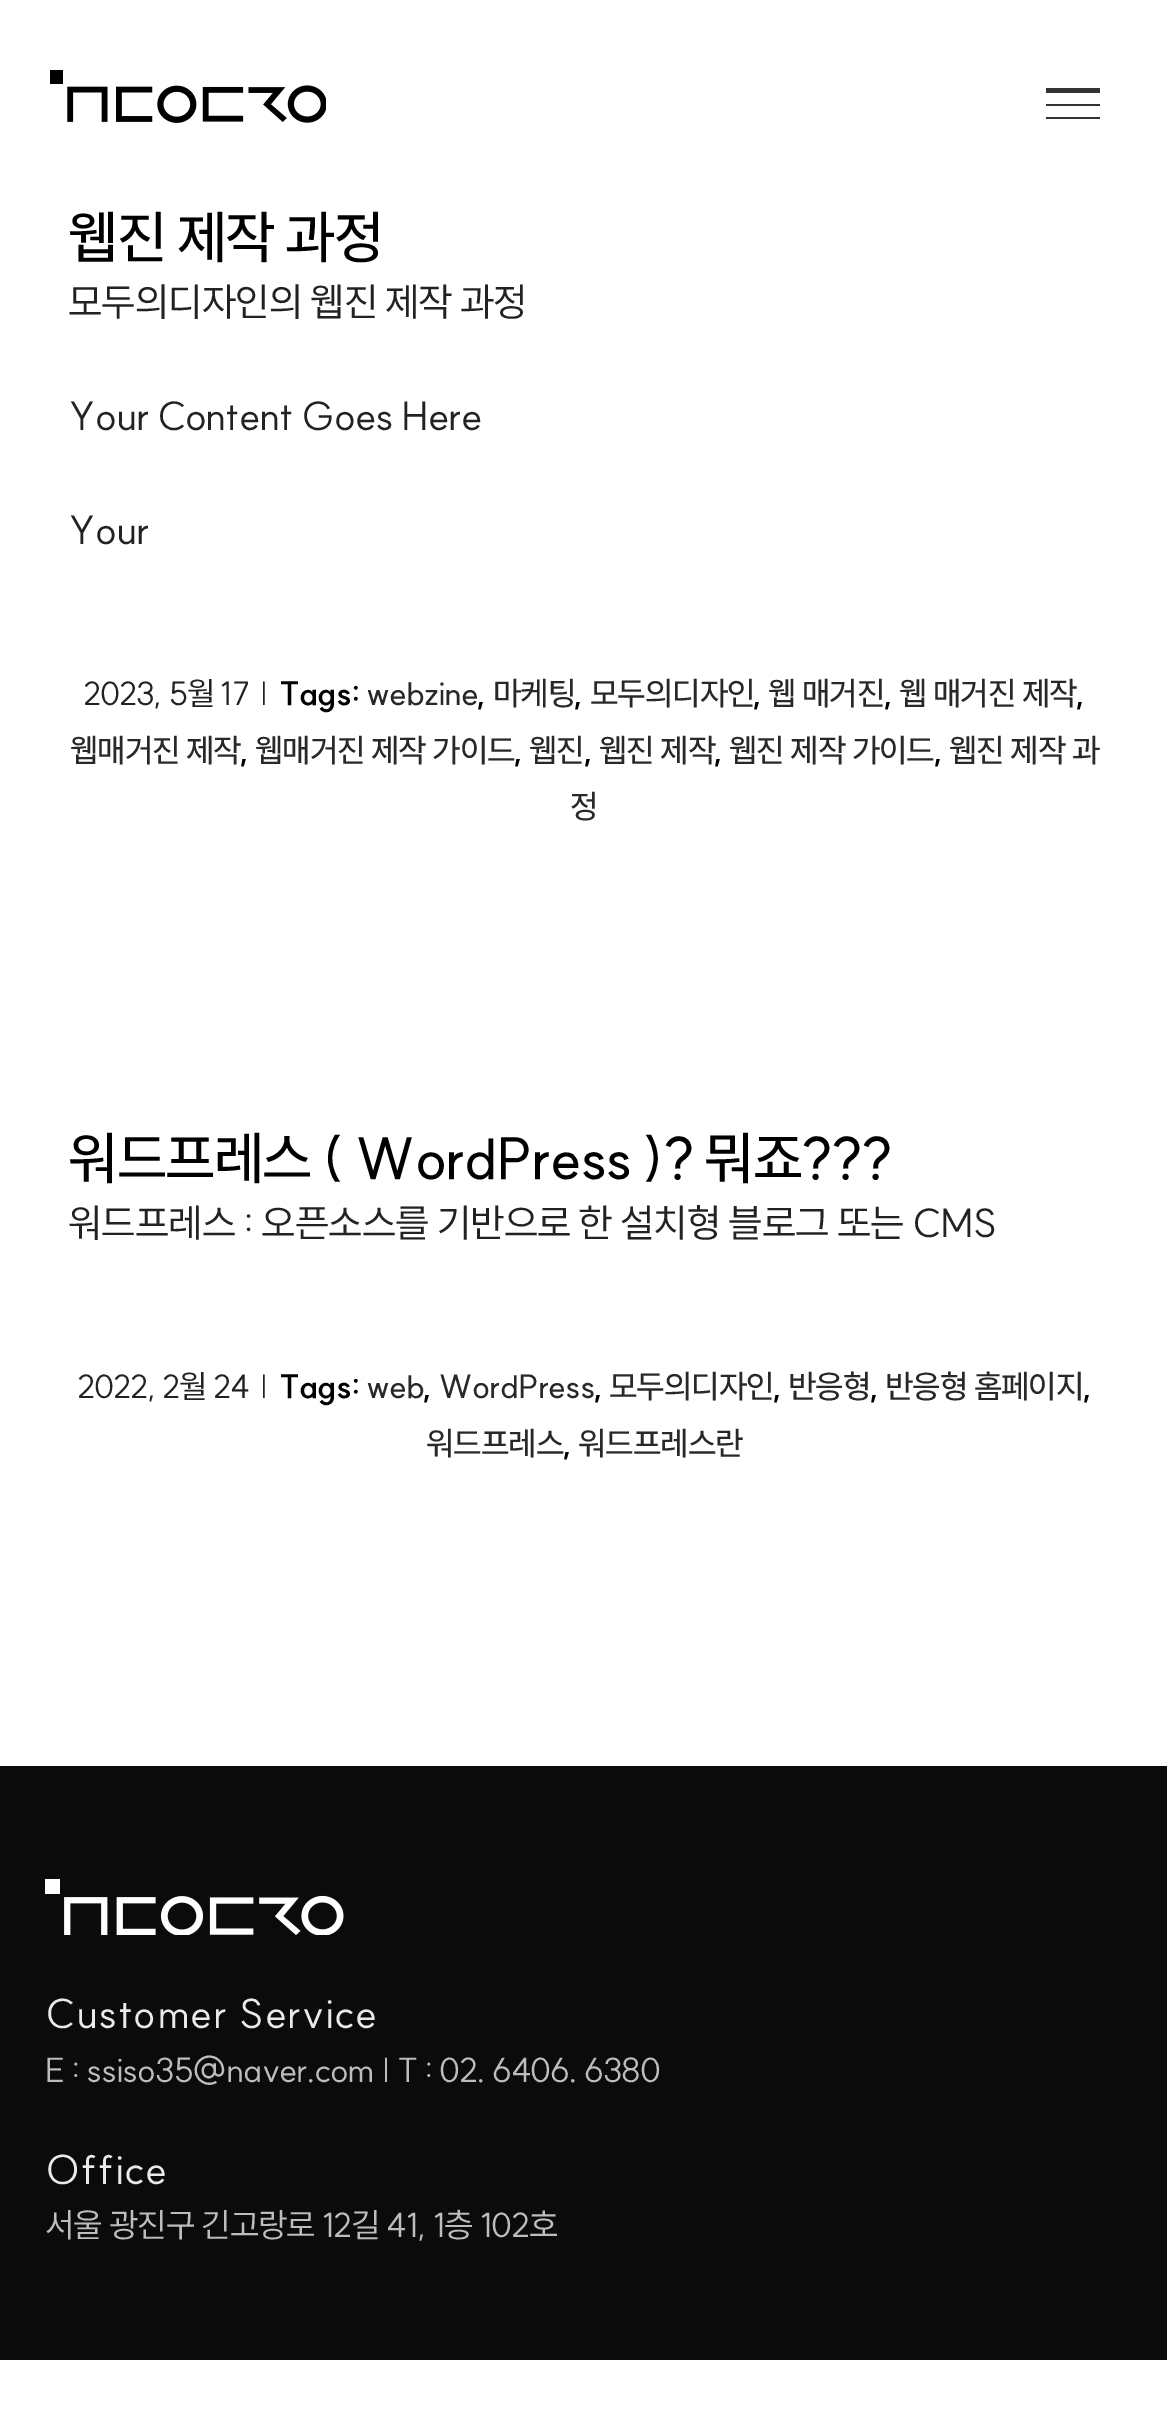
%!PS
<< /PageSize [1167 2432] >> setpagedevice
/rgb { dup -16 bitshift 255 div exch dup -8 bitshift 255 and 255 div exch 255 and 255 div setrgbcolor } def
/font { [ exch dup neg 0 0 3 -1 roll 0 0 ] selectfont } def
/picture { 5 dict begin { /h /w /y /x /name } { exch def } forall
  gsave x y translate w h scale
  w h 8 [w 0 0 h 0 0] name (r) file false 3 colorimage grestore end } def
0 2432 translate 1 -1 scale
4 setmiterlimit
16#FFFFFF rgb
0 0 1167 2432 rectfill
(pic1.raw) 50 70 276 53 picture
16#333333 rgb
1046 88 54 5 rectfill
1046 104 54 2 rectfill
1046 117 54 2 rectfill
/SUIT-Medium 57.6 font
16#000000 rgb
68 258 moveto -1.75 0 (웹진 제작 과정) ashow
/SUIT-Regular 39.4 font
16#222222 rgb
68 316 moveto -1 0 (모두의디자인의 웹진 제작 과정) ashow
68 430 moveto -1 0 (Your Content Goes Here) ashow
68 544 moveto -1 0 (Your) ashow
/SUIT-Regular 32.5 font
83 705 moveto -1 0 (2023, 5월 17) ashow
259 705 moveto -1 0 (|) ashow
/SUIT-Bold 32.5 font
16#000000 rgb
279 705 moveto -1 0 (Tags:) ashow
/SUIT-Medium 32.5 font
16#282828 rgb
366 705 moveto -1 0 (webzine) ashow
/SUIT-Bold 32.5 font
16#000000 rgb
477 705 moveto -1 0 (,) ashow
/SUIT-Medium 32.5 font
16#282828 rgb
493 705 moveto -1 0 (마케팅) ashow
/SUIT-Bold 32.5 font
16#000000 rgb
574 705 moveto -1 0 (,) ashow
/SUIT-Medium 32.5 font
16#282828 rgb
590 705 moveto -1 0 (모두의디자인) ashow
/SUIT-Bold 32.5 font
16#000000 rgb
753 705 moveto -1 0 (,) ashow
/SUIT-Medium 32.5 font
16#282828 rgb
768 705 moveto -1 0 (웹 매거진) ashow
/SUIT-Bold 32.5 font
16#000000 rgb
884 705 moveto -1 0 (,) ashow
/SUIT-Medium 32.5 font
16#282828 rgb
899 705 moveto -1 0 (웹 매거진 제작) ashow
/SUIT-Bold 32.5 font
16#000000 rgb
1076 705 moveto -1 0 (,) ashow
/SUIT-Medium 32.5 font
16#282828 rgb
70 762 moveto -1 0 (웹매거진 제작) ashow
/SUIT-Bold 32.5 font
16#000000 rgb
240 762 moveto -1 0 (,) ashow
/SUIT-Medium 32.5 font
16#282828 rgb
255 762 moveto -1 0 (웹매거진 제작 가이드) ashow
/SUIT-Bold 32.5 font
16#000000 rgb
514 762 moveto -1 0 (,) ashow
/SUIT-Medium 32.5 font
16#282828 rgb
529 762 moveto -1 0 (웹진) ashow
/SUIT-Bold 32.5 font
16#000000 rgb
584 762 moveto -1 0 (,) ashow
/SUIT-Medium 32.5 font
16#282828 rgb
599 762 moveto -1 0 (웹진 제작) ashow
/SUIT-Bold 32.5 font
16#000000 rgb
714 762 moveto -1 0 (,) ashow
/SUIT-Medium 32.5 font
16#282828 rgb
729 762 moveto -1 0 (웹진 제작 가이드) ashow
/SUIT-Bold 32.5 font
16#000000 rgb
934 762 moveto -1 0 (,) ashow
/SUIT-Medium 32.5 font
16#282828 rgb
949 762 moveto -1 0 (웹진 제작 과) ashow
570 818 moveto -1 0 (정) ashow
/SUIT-Medium 57.6 font
16#000000 rgb
68 1179 moveto -1.75 0 (워드프레스 \( WordPress \)? 뭐죠???) ashow
/SUIT-Regular 39.4 font
16#222222 rgb
68 1237 moveto -1 0 (워드프레스 : 오픈소스를 기반으로 한 설치형 블로그 또는 CMS) ashow
/SUIT-Regular 32.5 font
77 1398 moveto -1 0 (2022, 2월 24) ashow
259 1398 moveto -1 0 (|) ashow
/SUIT-Bold 32.5 font
16#000000 rgb
279 1398 moveto -1 0 (Tags:) ashow
/SUIT-Medium 32.5 font
16#282828 rgb
366 1398 moveto -1 0 (web) ashow
/SUIT-Bold 32.5 font
16#000000 rgb
423 1398 moveto -1 0 (,) ashow
/SUIT-Medium 32.5 font
16#282828 rgb
438 1398 moveto -1 0 (WordPress) ashow
/SUIT-Bold 32.5 font
16#000000 rgb
594 1398 moveto -1 0 (,) ashow
/SUIT-Medium 32.5 font
16#282828 rgb
609 1398 moveto -1 0 (모두의디자인) ashow
/SUIT-Bold 32.5 font
16#000000 rgb
773 1398 moveto -1 0 (,) ashow
/SUIT-Medium 32.5 font
16#282828 rgb
788 1398 moveto -1 0 (반응형) ashow
/SUIT-Bold 32.5 font
16#000000 rgb
870 1398 moveto -1 0 (,) ashow
/SUIT-Medium 32.5 font
16#282828 rgb
885 1398 moveto -1 0 (반응형 홈페이지) ashow
/SUIT-Bold 32.5 font
16#000000 rgb
1083 1398 moveto -1 0 (,) ashow
/SUIT-Medium 32.5 font
16#282828 rgb
426 1455 moveto -1 0 (워드프레스) ashow
/SUIT-Bold 32.5 font
16#000000 rgb
563 1455 moveto -1 0 (,) ashow
/SUIT-Medium 32.5 font
16#282828 rgb
578 1455 moveto -1 0 (워드프레스란) ashow
16#0B0B0B rgb
0 1766 1167 594 rectfill
(pic2.raw) 45 1879 299 56 picture
/SUIT-Regular 40.5 font
16#EBEAEA rgb
45 2028 moveto 0.75 0 (Customer Service) ashow
/SUIT-Regular 33.75 font
16#BEBDBD rgb
45 2082 moveto -1 0 (E : ssiso35@naver.com | T : 02. 6406. 6380) ashow
/SUIT-Regular 40.5 font
16#EBEAEA rgb
45 2184 moveto 0.75 0 (Office) ashow
/SUIT-Regular 33.75 font
16#BEBDBD rgb
45 2237 moveto -1 0 (서울 광진구 긴고랑로 12길 41, 1층 102호) ashow
showpage
